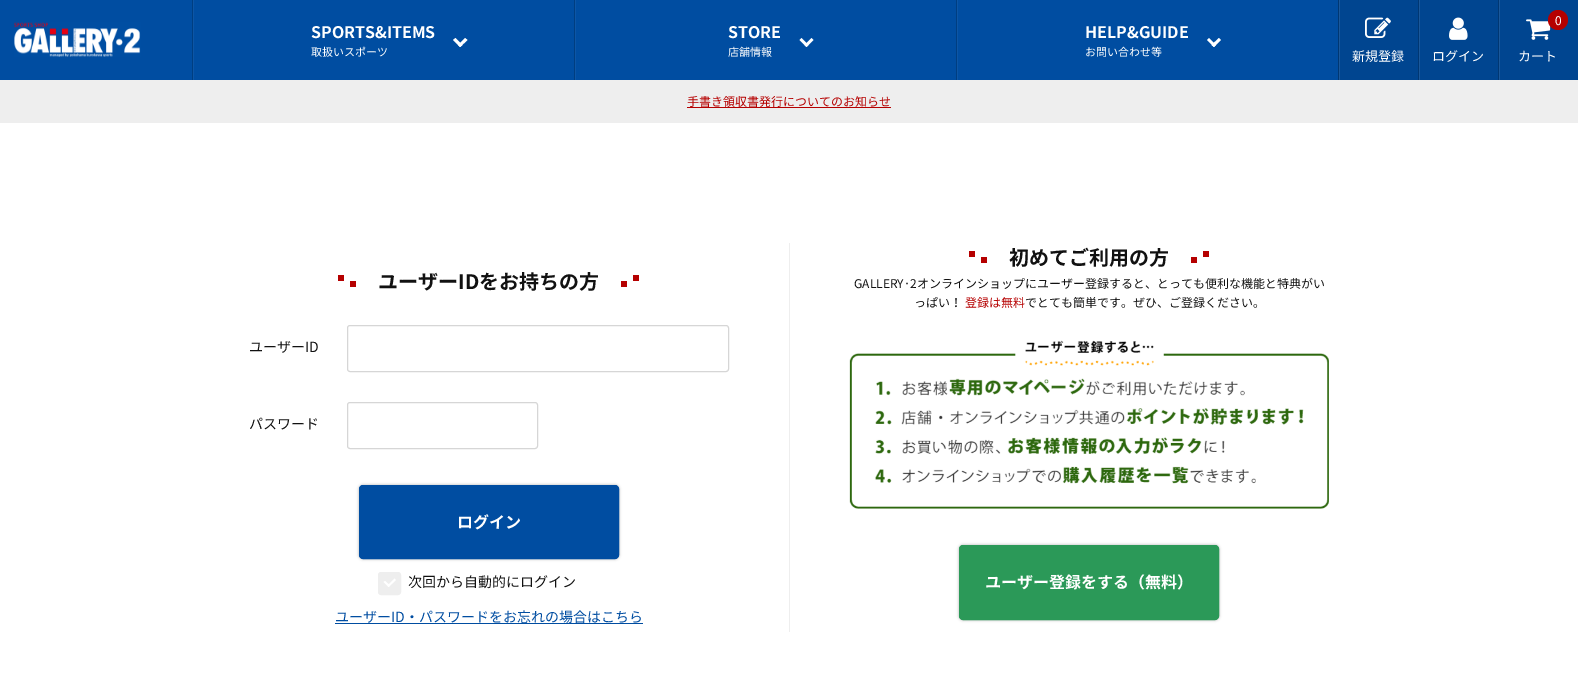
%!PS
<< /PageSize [1578 683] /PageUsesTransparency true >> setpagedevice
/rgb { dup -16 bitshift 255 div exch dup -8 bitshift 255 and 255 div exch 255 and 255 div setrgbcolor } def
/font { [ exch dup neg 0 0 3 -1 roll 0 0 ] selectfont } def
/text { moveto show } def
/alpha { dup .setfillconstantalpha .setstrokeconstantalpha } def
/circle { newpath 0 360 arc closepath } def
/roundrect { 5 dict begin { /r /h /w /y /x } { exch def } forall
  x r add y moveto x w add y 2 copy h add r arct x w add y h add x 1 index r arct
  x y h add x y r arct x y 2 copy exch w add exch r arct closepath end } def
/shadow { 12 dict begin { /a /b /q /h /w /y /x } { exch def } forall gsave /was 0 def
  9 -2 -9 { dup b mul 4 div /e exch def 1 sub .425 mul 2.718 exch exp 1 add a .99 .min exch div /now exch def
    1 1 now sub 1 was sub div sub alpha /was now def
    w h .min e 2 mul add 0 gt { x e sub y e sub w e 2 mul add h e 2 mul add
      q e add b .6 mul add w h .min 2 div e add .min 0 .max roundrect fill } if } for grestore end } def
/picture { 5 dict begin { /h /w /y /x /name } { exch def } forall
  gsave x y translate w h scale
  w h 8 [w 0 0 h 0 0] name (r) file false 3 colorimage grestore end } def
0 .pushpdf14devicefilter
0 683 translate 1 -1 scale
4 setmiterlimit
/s1 { /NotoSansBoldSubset-Bold 16 font 16#FFFFFF rgb } def
/s2 { /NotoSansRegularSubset-Regular 11 font 16#FFFFFF rgb } def
/s3 { /NotoSansRegularSubset-Regular 13 font 16#FFFFFF rgb } def
/s4 { /NotoSansRegularSubset-Regular 12 font 16#FFFFFF rgb } def
/s5 { /NotoSansRegularSubset-Regular 12 font 16#B50000 rgb } def
/s6 { /NotoSansBoldSubset-Bold 20 font 16#111111 rgb } def
/s7 { /NotoSansRegularSubset-Regular 14 font 16#111111 rgb } def
/s8 { /NotoSansRegularSubset-Regular 14 font 16#004DA1 rgb } def
/s9 { /NotoSansRegularSubset-Regular 12 font 16#111111 rgb } def
/s10 { /IPAPGothic-Regular 12 font 16#111111 rgb } def
16#FFFFFF rgb
0 0 1578 683 rectfill
16#004DA1 rgb
0 0 1338 80 rectfill
(pic1.raw) 14 22 127 35 picture
16#0D56A6 rgb
193 0 1 80 rectfill
16#003E81 rgb
192 0 1 80 rectfill
s1
(SPORTS&ITEMS) 311 38 text
465 38 moveto 467.5 40 lineto 460 47 lineto 458 45 lineto closepath fill
455.5 38 moveto 462.5 45 lineto 460 47 lineto 453 40 lineto closepath fill
s2
(取扱いスポーツ) 311 56 text
16#0D56A6 rgb
575 0 1 80 rectfill
16#003E81 rgb
574 0 1 80 rectfill
s1
(STORE) 728 38 text
811.5 38 moveto 813.5 40 lineto 806.5 47 lineto 804.5 45 lineto closepath fill
801.5 38 moveto 808.5 45 lineto 806.5 47 lineto 799.5 40 lineto closepath fill
s2
(店舗情報) 728 56 text
16#0D56A6 rgb
957 0 1 80 rectfill
16#003E81 rgb
956 0 1 80 rectfill
s1
(HELP&GUIDE) 1085 38 text
1219 38 moveto 1221 40 lineto 1214 47 lineto 1211.5 45 lineto closepath fill
1209 38 moveto 1216 45 lineto 1214 47 lineto 1207 40 lineto closepath fill
s2
(お問い合わせ等) 1085 56 text
16#1A589B rgb
1339 0 1 80 rectfill
16#003773 rgb
1338 0 1 80 rectfill
16#004590 rgb
1340 0 78 80 rectfill
(pic2.raw) 1365 17 26 21 picture
s3
(新規登録) 1352 61 text
16#1A589B rgb
1419 0 1 80 rectfill
16#003773 rgb
1418 0 1 80 rectfill
16#004590 rgb
1420 0 78 80 rectfill
(pic3.raw) 1449 17 19 23 picture
s3
(ログイン) 1432 61 text
16#1A589B rgb
1499 0 1 80 rectfill
16#003773 rgb
1498 0 1 80 rectfill
16#004590 rgb
1500 0 78 80 rectfill
(pic4.raw) 1526 19 25 21 picture
16#B50000 rgb
1558 20 10 circle fill
s4
(0) 1555 25 text
s3
(カート) 1518 61 text
16#EEEEEE rgb
0 80 1578 43 rectfill
s5
(手書き領収書発行についてのお知らせ) 687 106 text
687 107 204 1 rectfill
16#EEEEEE rgb
789 243 1 389 rectfill
16#B50000 rgb
350 281 6 6 rectfill
338 275 6 6 rectfill
s6
(ユーザーIDをお持ちの方) 378 289 text
16#B50000 rgb
621 281 6 6 rectfill
633 275 6 6 rectfill
s7
(ユーザーID) 249 352 text
16#D6D6D6 rgb
347.5 325.5 381 46 2.5 roundrect stroke
s7
(パスワード) 249 429 text
16#D6D6D6 rgb
347.5 402.5 190 46 2.5 roundrect stroke
16#000000 rgb
359 485 260 74 4 1.5 0.3 shadow
16#004DA1 rgb
359.5 485.5 259 73 3.5 roundrect gsave fill grestore
stroke
s1
(ログイン) 457 528 text
16#EEEEEE rgb
378.5 572.5 22 22 2.5 roundrect gsave fill grestore
stroke
s7
(次回から自動的にログイン) 408 587 text
16#FFFFFF rgb
387.5 585.5 moveto 394.5 578.5 lineto 396 580 lineto 388.5 587 lineto closepath fill
383.5 582 moveto 385 581 lineto 390 585.5 lineto 388.5 587 lineto closepath fill
16#004DA1 rgb
335 623 308 1 rectfill
(ユーザーID・パスワードをお忘れの場合はこちら) 335 622 text
16#B50000 rgb
981 257 6 6 rectfill
969 251 6 6 rectfill
s6
(初めてご利用の方) 1009 265 text
16#B50000 rgb
1191 257 6 6 rectfill
1203 251 6 6 rectfill
s9
(GALLERY) 854 288 text
s10
(･) 904 288 text
s9
(2オンラインショップにユーザー登録すると、とっても便利な機能と特典がい) 910 288 text
(っぱい！) 914 307 text
s5
(登録は無料) 965 307 text
s9
(でとても簡単です。ぜひ、ご登録ください。) 1025 307 text
(pic5.raw) 849 340 480 169 picture
16#000000 rgb
959 545 260 75 4 1.5 0.3 shadow
16#2B9958 rgb
959.5 545.5 259 74 3.5 roundrect gsave fill grestore
stroke
s1
(ユーザー登録をする（無料）) 985 588 text
.poppdf14devicefilter showpage
